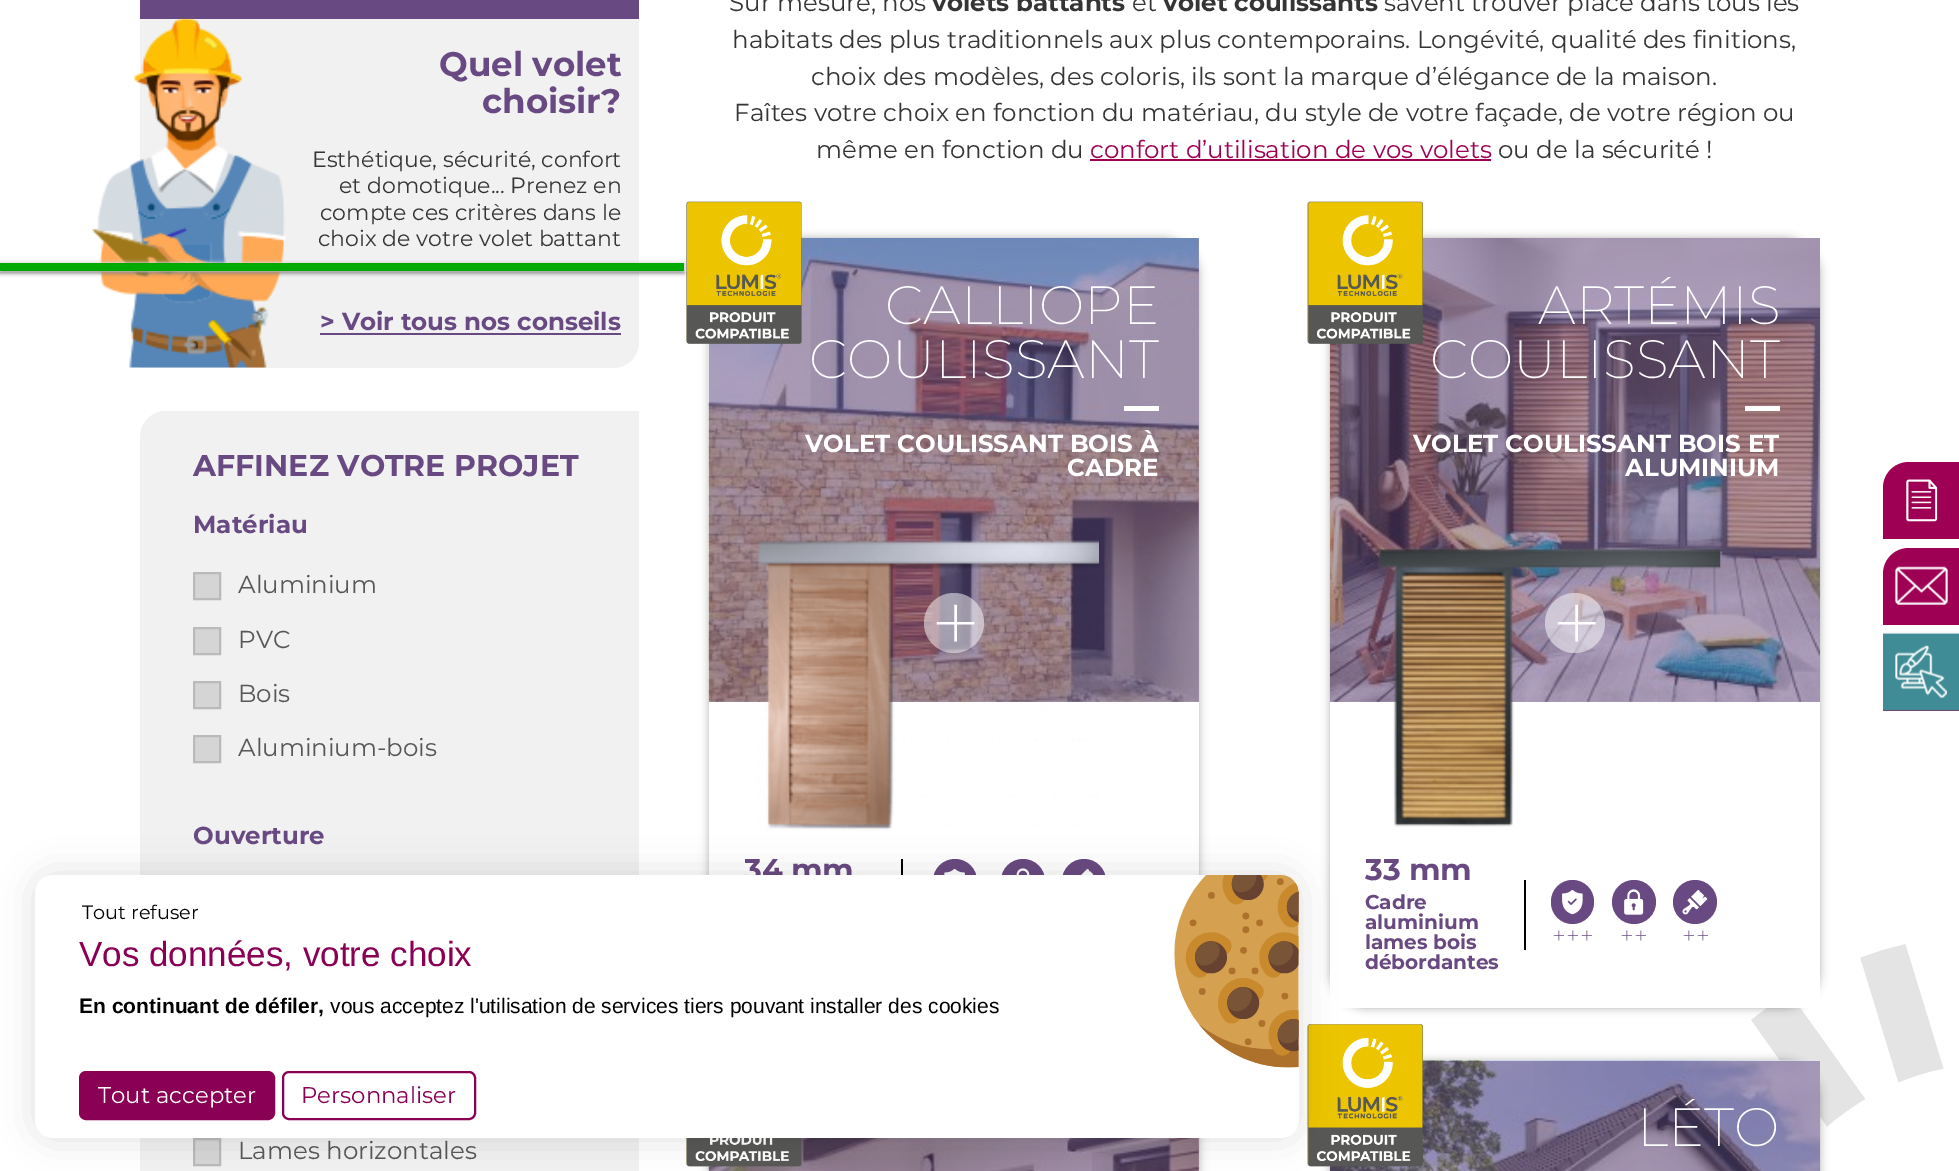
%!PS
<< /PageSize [1959 1171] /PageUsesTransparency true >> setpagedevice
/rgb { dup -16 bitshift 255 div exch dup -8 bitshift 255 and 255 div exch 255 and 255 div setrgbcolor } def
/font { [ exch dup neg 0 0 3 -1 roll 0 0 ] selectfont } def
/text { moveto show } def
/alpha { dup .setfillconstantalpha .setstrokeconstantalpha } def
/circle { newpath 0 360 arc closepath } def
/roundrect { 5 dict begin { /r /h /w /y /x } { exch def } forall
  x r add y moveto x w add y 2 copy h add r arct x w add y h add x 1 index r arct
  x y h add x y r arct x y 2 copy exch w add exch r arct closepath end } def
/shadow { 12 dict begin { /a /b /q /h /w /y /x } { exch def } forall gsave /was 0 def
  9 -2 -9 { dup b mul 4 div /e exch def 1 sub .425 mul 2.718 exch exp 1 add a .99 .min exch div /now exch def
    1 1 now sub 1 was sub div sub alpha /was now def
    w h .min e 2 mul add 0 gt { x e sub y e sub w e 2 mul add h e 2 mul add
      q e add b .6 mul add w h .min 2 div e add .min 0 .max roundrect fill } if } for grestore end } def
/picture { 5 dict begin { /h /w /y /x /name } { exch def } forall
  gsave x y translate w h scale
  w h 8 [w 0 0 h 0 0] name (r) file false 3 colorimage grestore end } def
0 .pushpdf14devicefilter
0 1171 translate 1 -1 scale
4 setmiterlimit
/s1 { /Montserrat-Bold 34 font 16#684982 rgb } def
/s2 { /Montserrat-Regular 22 font 16#353535 rgb } def
/s3 { /Montserrat-Bold 24.5 font 16#684982 rgb } def
/s4 { /Montserrat-Bold 30 font 16#684982 rgb } def
/s5 { /Montserrat-Regular 24.5 font 16#575757 rgb } def
/s6 { /Montserrat-Regular 24.5 font 16#353535 rgb } def
/s7 { /Montserrat-Bold 24.5 font 16#353535 rgb } def
/s8 { /Montserrat-Regular 24.5 font 16#9E0054 rgb } def
/s9 { /Montserrat-ExtraLight 54 font 16#FFFFFF rgb } def
/s10 { /Montserrat-Bold 24.5 font 16#FFFFFF rgb } def
/s11 { /Montserrat-Bold 20 font 16#684982 rgb } def
/s12 { /Montserrat-ExtraLight 24.5 font 16#684982 rgb } def
/s13 { /Montserrat-Regular 19.25 font 16#000000 rgb } def
/s14 { /LiberationSans-Regular 35 font 16#890055 rgb } def
/s15 { /LiberationSans-Bold 21 font 16#000000 rgb } def
/s16 { /LiberationSans-Regular 21 font 16#000000 rgb } def
/s17 { /Montserrat-Regular 22.75 font 16#FFFFFF rgb } def
/s18 { /Montserrat-Regular 22.75 font 16#890055 rgb } def
16#FFFFFF rgb
0 0 1959 1171 rectfill
16#684982 rgb
140 0 499 19 rectfill
16#F1F1F1 rgb
140 19 moveto 639 19 lineto 639 342 lineto 639 356.5 627.5 368 613 368 curveto 140 368 lineto closepath fill
(pic1.raw) 92 18 194 350 picture
s1
(Quel volet) 439 76 text
(choisir?) 482 113 text
s2
(Esthétique, sécurité, confort) 312 167 text
(et domotique... Prenez en) 339 193 text
(compte ces critères dans le) 320 220 text
(choix de votre volet battant) 318 246 text
s3
(> Voir tous nos conseils) 320 330 text
320 333 301 2 rectfill
16#F1F1F1 rgb
166 411 moveto 639 411 lineto 639 1171 lineto 639 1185.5 627.5 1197 613 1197 curveto 140 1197 lineto 140 437 lineto 140 422.5 151.5 411 166 411 curveto closepath fill
s4
(AFFINEZ VOTRE PROJET) 193 476 text
s3
(Matériau) 193 533 text
16#D5D5D6 rgb
194 573 moveto 220 573 lineto 220 599 lineto 194 599 lineto closepath gsave fill grestore
16#BABABB rgb
2 setlinewidth
stroke
s5
(Aluminium) 238 593 text
16#D5D5D6 rgb
194 628 moveto 220 628 lineto 220 654 lineto 194 654 lineto closepath gsave fill grestore
16#BABABB rgb
stroke
s5
(PVC) 238 648 text
16#D5D5D6 rgb
194 682 moveto 220 682 lineto 220 708 lineto 194 708 lineto closepath gsave fill grestore
16#BABABB rgb
stroke
s5
(Bois) 238 702 text
16#D5D5D6 rgb
194 736 moveto 220 736 lineto 220 762 lineto 194 762 lineto closepath gsave fill grestore
16#BABABB rgb
stroke
s5
(Aluminium-bois) 238 756 text
s3
(Ouverture) 193 844 text
16#D5D5D6 rgb
194 1139 moveto 220 1139 lineto 220 1165 lineto 194 1165 lineto closepath gsave fill grestore
16#BABABB rgb
stroke
s5
(Lames horizontales) 238 1159 text
s6
(Sur mesure, nos) 729 11 text
s7
(volets battants) 932 11 text
s6
(et) 1132 11 text
s7
(volet coulissants) 1163 11 text
s6
(savent trouver place dans tous les) 1384 11 text
(habitats des plus traditionnels aux plus contemporains. Longévité, qualité des finitions,) 732 48 text
(choix des modèles, des coloris, ils sont la marque d’élégance de la maison.) 811 85 text
(Faîtes votre choix en fonction du matériau, du style de votre façade, de votre région ou) 734 121 text
(même en fonction du) 816 158 text
s8
(confort d’utilisation de vos volets) 1090 158 text
1090 159 401 2 rectfill
s6
(ou de la sécurité !) 1498 158 text
16#000000 rgb
709 238 490 770 35 4.5 0.3 shadow
16#FFFFFF rgb
709 238 490 637 rectfill
(pic3.raw) 708 238 491 464 picture
0.5 alpha
16#684982 rgb
709 238 490 464 rectfill
1 alpha
(pic2.raw) 686 201 116 143 picture
s9
(CALLIOPE) 885 324 text
(COULISSANT) 809 378 text
1124 406 35 5 rectfill
s10
(VOLET COULISSANT BOIS À) 805 452 text
(CADRE) 1067 476 text
(pic4.raw) 757 540 342 290 picture
0.5 alpha
954 623 30 circle fill
/Montserrat-ExtraLight 91 font
1 alpha
930 655 moveto -4 0 (+) ashow
s4
(34 mm) 744 880 text
16#000000 rgb
901 859 2 16 rectfill
16#684982 rgb
955 881 22 circle fill
(pic5.raw) 944 868 21 7 picture
1023 881 22 circle fill
(pic6.raw) 1016 868 14 7 picture
1084 881 22 circle fill
(pic7.raw) 1081 868 13 7 picture
(pic21.raw) 1751 944 193 183 picture
16#000000 rgb
1330 238 490 770 35 4.5 0.3 shadow
16#FFFFFF rgb
1330 701 490 307 rectfill
(pic9.raw) 1330 238 490 464 picture
0.5 alpha
16#684982 rgb
1330 238 490 464 rectfill
1 alpha
(pic8.raw) 1307 201 116 143 picture
s9
(ARTÉMIS) 1538 324 text
(COULISSANT) 1430 378 text
1745 406 35 5 rectfill
s10
(VOLET COULISSANT BOIS ET) 1413 452 text
(ALUMINIUM) 1625 476 text
(pic10.raw) 1378 547 343 280 picture
0.5 alpha
1575 623 30 circle fill
/Montserrat-ExtraLight 91 font
1 alpha
1551 655 moveto -4 0 (+) ashow
s4
(33 mm) 1365 880 text
s11
(Cadre) 1365 909 text
(aluminium) 1365 929 text
(lames bois) 1365 949 text
(débordantes) 1365 969 text
16#000000 rgb
1524 880 2 70 rectfill
16#684982 rgb
1551 880 43 44 21.5 roundrect fill
(pic11.raw) 1562 889 21 26 picture
s12
(+++) 1552 944 text
1634 902 22 circle fill
(pic12.raw) 1624 889 20 26 picture
(++) 1620 944 text
1695 902 22 circle fill
(pic13.raw) 1682 889 26 26 picture
(++) 1682 944 text
16#000000 rgb
709 1061 490 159 35 4.5 0.3 shadow
(pic15.raw) 708 1138 491 33 picture
0.5 alpha
16#684982 rgb
709 1138 490 33 rectfill
1 alpha
(pic14.raw) 686 1138 116 29 picture
16#000000 rgb
1330 1061 490 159 35 4.5 0.3 shadow
(pic17.raw) 1330 1060 490 111 picture
(pic16.raw) 1307 1024 116 143 picture
s9
(LÉTO) 1637 1146 text
16#9E0054 rgb
1909 462 moveto 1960 462 lineto 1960 539 lineto 1883 539 lineto 1883 488 lineto 1883 473.5 1894.5 462 1909 462 curveto closepath fill
(pic18.raw) 1906 479 32 43 picture
1909 548 moveto 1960 548 lineto 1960 625 lineto 1883 625 lineto 1883 574 lineto 1883 559.5 1894.5 548 1909 548 curveto closepath fill
(pic19.raw) 1895 566 53 39 picture
1883 709 76 2 rectfill
(pic20.raw) 1883 632 76 79 picture
16#555555 rgb
0 264 684 9 0 2 1 shadow
16#FFFFFF rgb
0 263 684 8 0 2 1 shadow
16#00AA00 rgb
0 263 684 8 rectfill
16#000000 rgb
35 875 1264 263 18 17.5 0.12 shadow
16#FFFFFF rgb
35 875 1264 263 18 roundrect fill
(pic22.raw) 1174 875 125 193 picture
s13
(Tout refuser) 82 919 text
s14
(Vos données, votre choix) 79 966 text
s15
(En continuant de défiler,) 79 1013 text
s16
(vous acceptez l'utilisation de services tiers pouvant installer des cookies) 330 1013 text
16#890055 rgb
80 1072 194 47 6 roundrect gsave fill grestore
stroke
s17
(Tout accepter) 98 1103 text
16#890055 rgb
283 1072 192 47 6 roundrect stroke
(Personnaliser) 301 1103 text
.poppdf14devicefilter showpage
